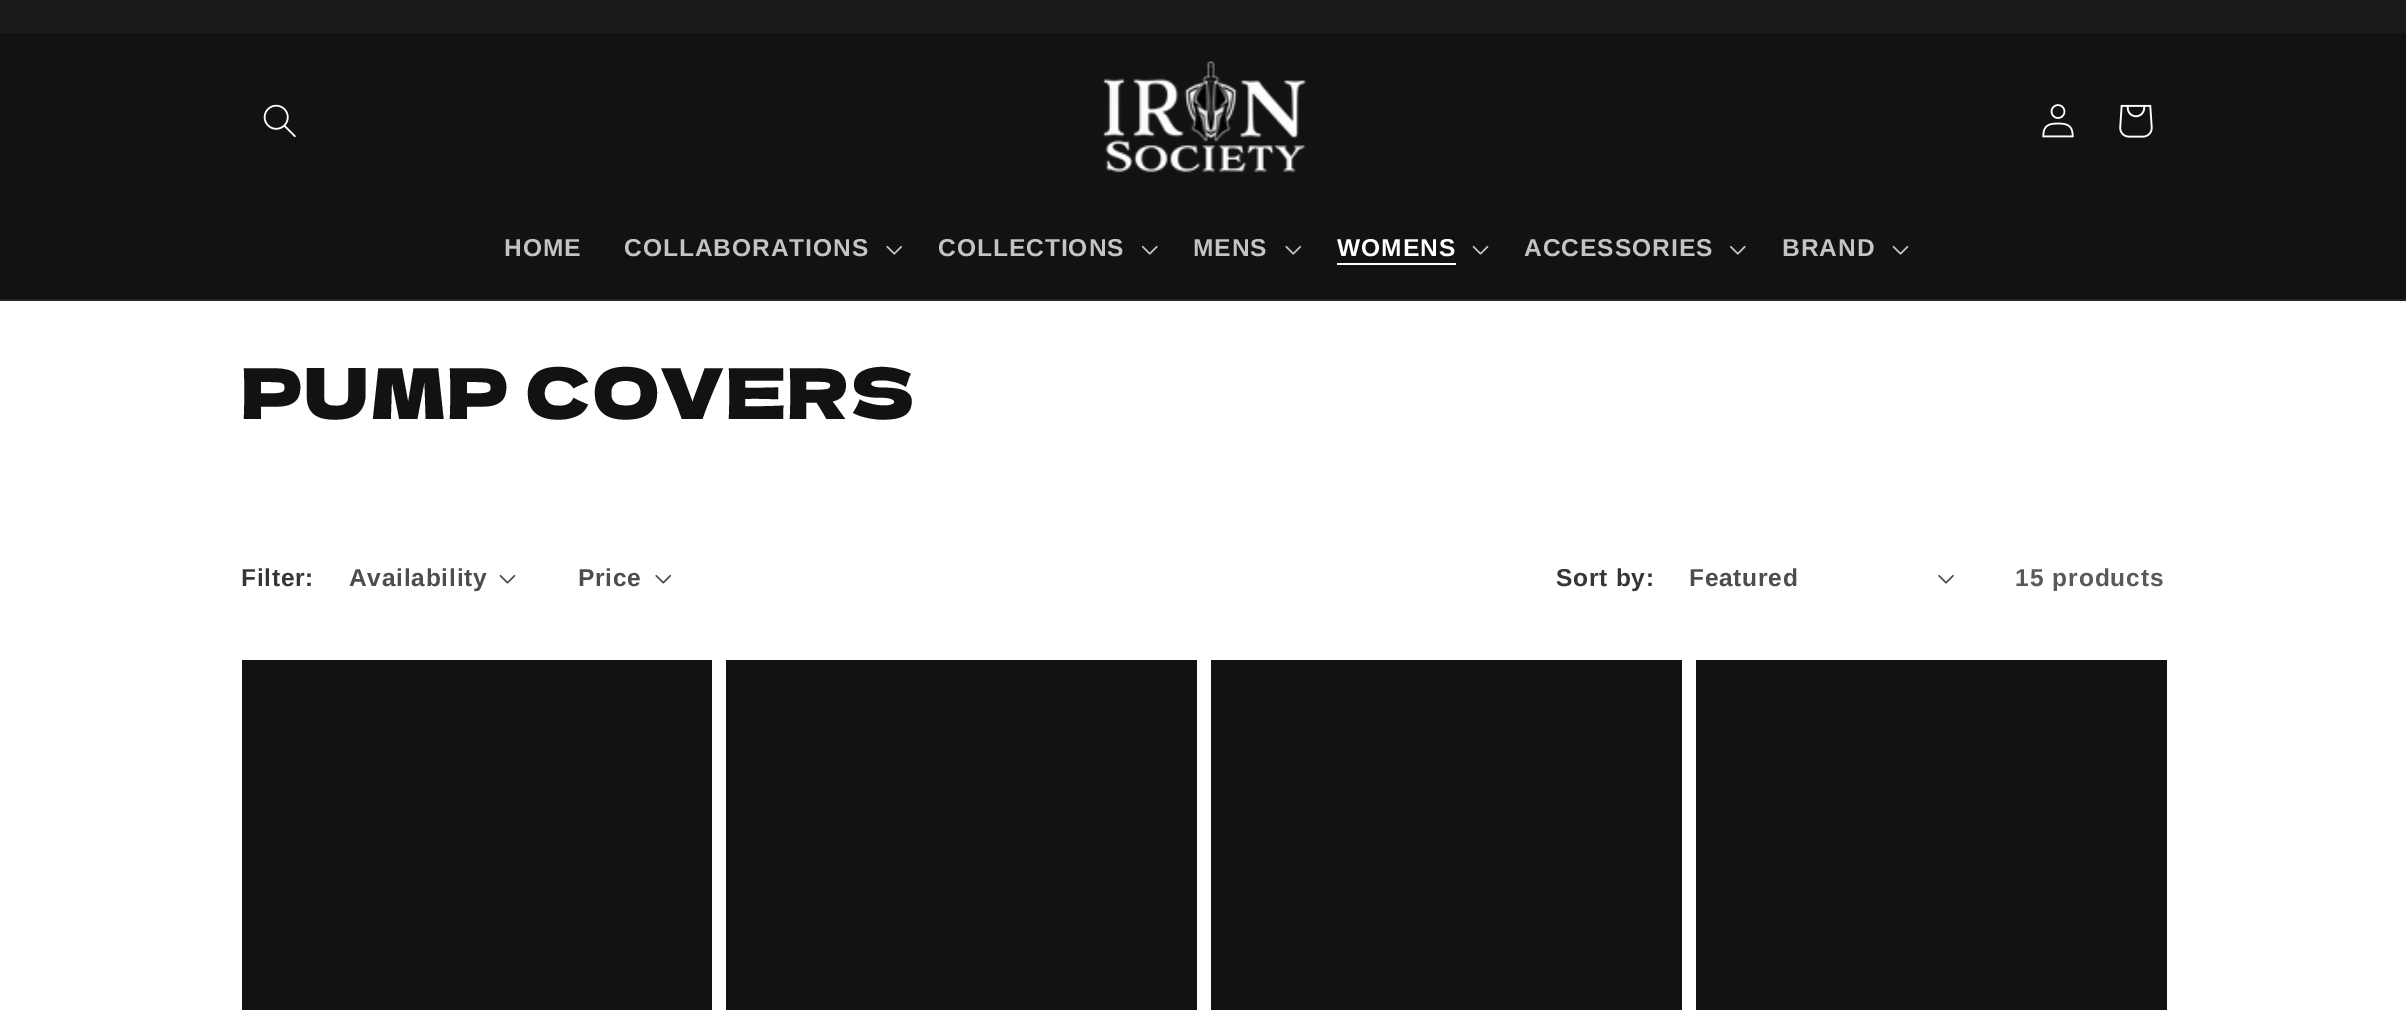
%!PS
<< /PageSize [2406 1010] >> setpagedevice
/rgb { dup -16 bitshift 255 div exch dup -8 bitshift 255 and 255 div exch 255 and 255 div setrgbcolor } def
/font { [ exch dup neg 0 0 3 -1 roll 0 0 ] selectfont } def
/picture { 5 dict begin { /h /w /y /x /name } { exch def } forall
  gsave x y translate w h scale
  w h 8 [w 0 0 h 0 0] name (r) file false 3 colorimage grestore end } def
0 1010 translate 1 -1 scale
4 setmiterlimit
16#FFFFFF rgb
0 0 2406 1010 rectfill
16#1A1A1A rgb
0 0 2406 33 rectfill
16#121212 rgb
0 33 2406 266 rectfill
16#252525 rgb
0 299 2406 2 rectfill
(pic1.raw) 263 104 33 34 picture
(pic2.raw) 1102 61 204 112 picture
(pic3.raw) 2042 104 32 34 picture
(pic4.raw) 2119 104 34 34 picture
/LiberationSans-Bold 24.5 font
16#C4C4C4 rgb
504 256 moveto 1 0 (HOME) ashow
624 256 moveto 1 0 (COLLABORATIONS) ashow
(pic5.raw) 886 245 17 10 picture
938 256 moveto 1 0 (COLLECTIONS) ashow
(pic6.raw) 1141 245 17 10 picture
1193 256 moveto 1 0 (MENS) ashow
(pic5.raw) 1285 245 17 10 picture
16#FFFFFF rgb
1337 256 moveto 1 0 (WOMENS) ashow
1337 263 119 2 rectfill
(pic7.raw) 1472 245 17 10 picture
16#C4C4C4 rgb
1524 256 moveto 1 0 (ACCESSORIES) ashow
(pic6.raw) 1729 245 17 10 picture
1782 256 moveto 1 0 (BRAND) ashow
(pic7.raw) 1892 245 17 10 picture
/DelaGothicOne-Regular 70 font
16#121212 rgb
241 419 moveto 1 0 (PUMP COVERS) ashow
/LiberationSans-Bold 24.5 font
16#363636 rgb
241 586 moveto 0.75 0 (Filter:) ashow
16#4D4D4D rgb
349 586 moveto 0.75 0 (Availability) ashow
(pic8.raw) 499 574 17 10 picture
578 586 moveto 0.75 0 (Price) ashow
(pic9.raw) 655 574 17 10 picture
16#363636 rgb
1556 586 moveto 0.75 0 (Sort by:) ashow
16#4D4D4D rgb
1689 586 moveto 0.75 0 (Featured) ashow
(pic10.raw) 1938 575 16 9 picture
16#595959 rgb
2015 586 moveto 1 0 (15 products) ashow
16#121212 rgb
242 660 470 350 rectfill
726 660 471 350 rectfill
1211 660 471 350 rectfill
1696 660 471 350 rectfill
showpage
